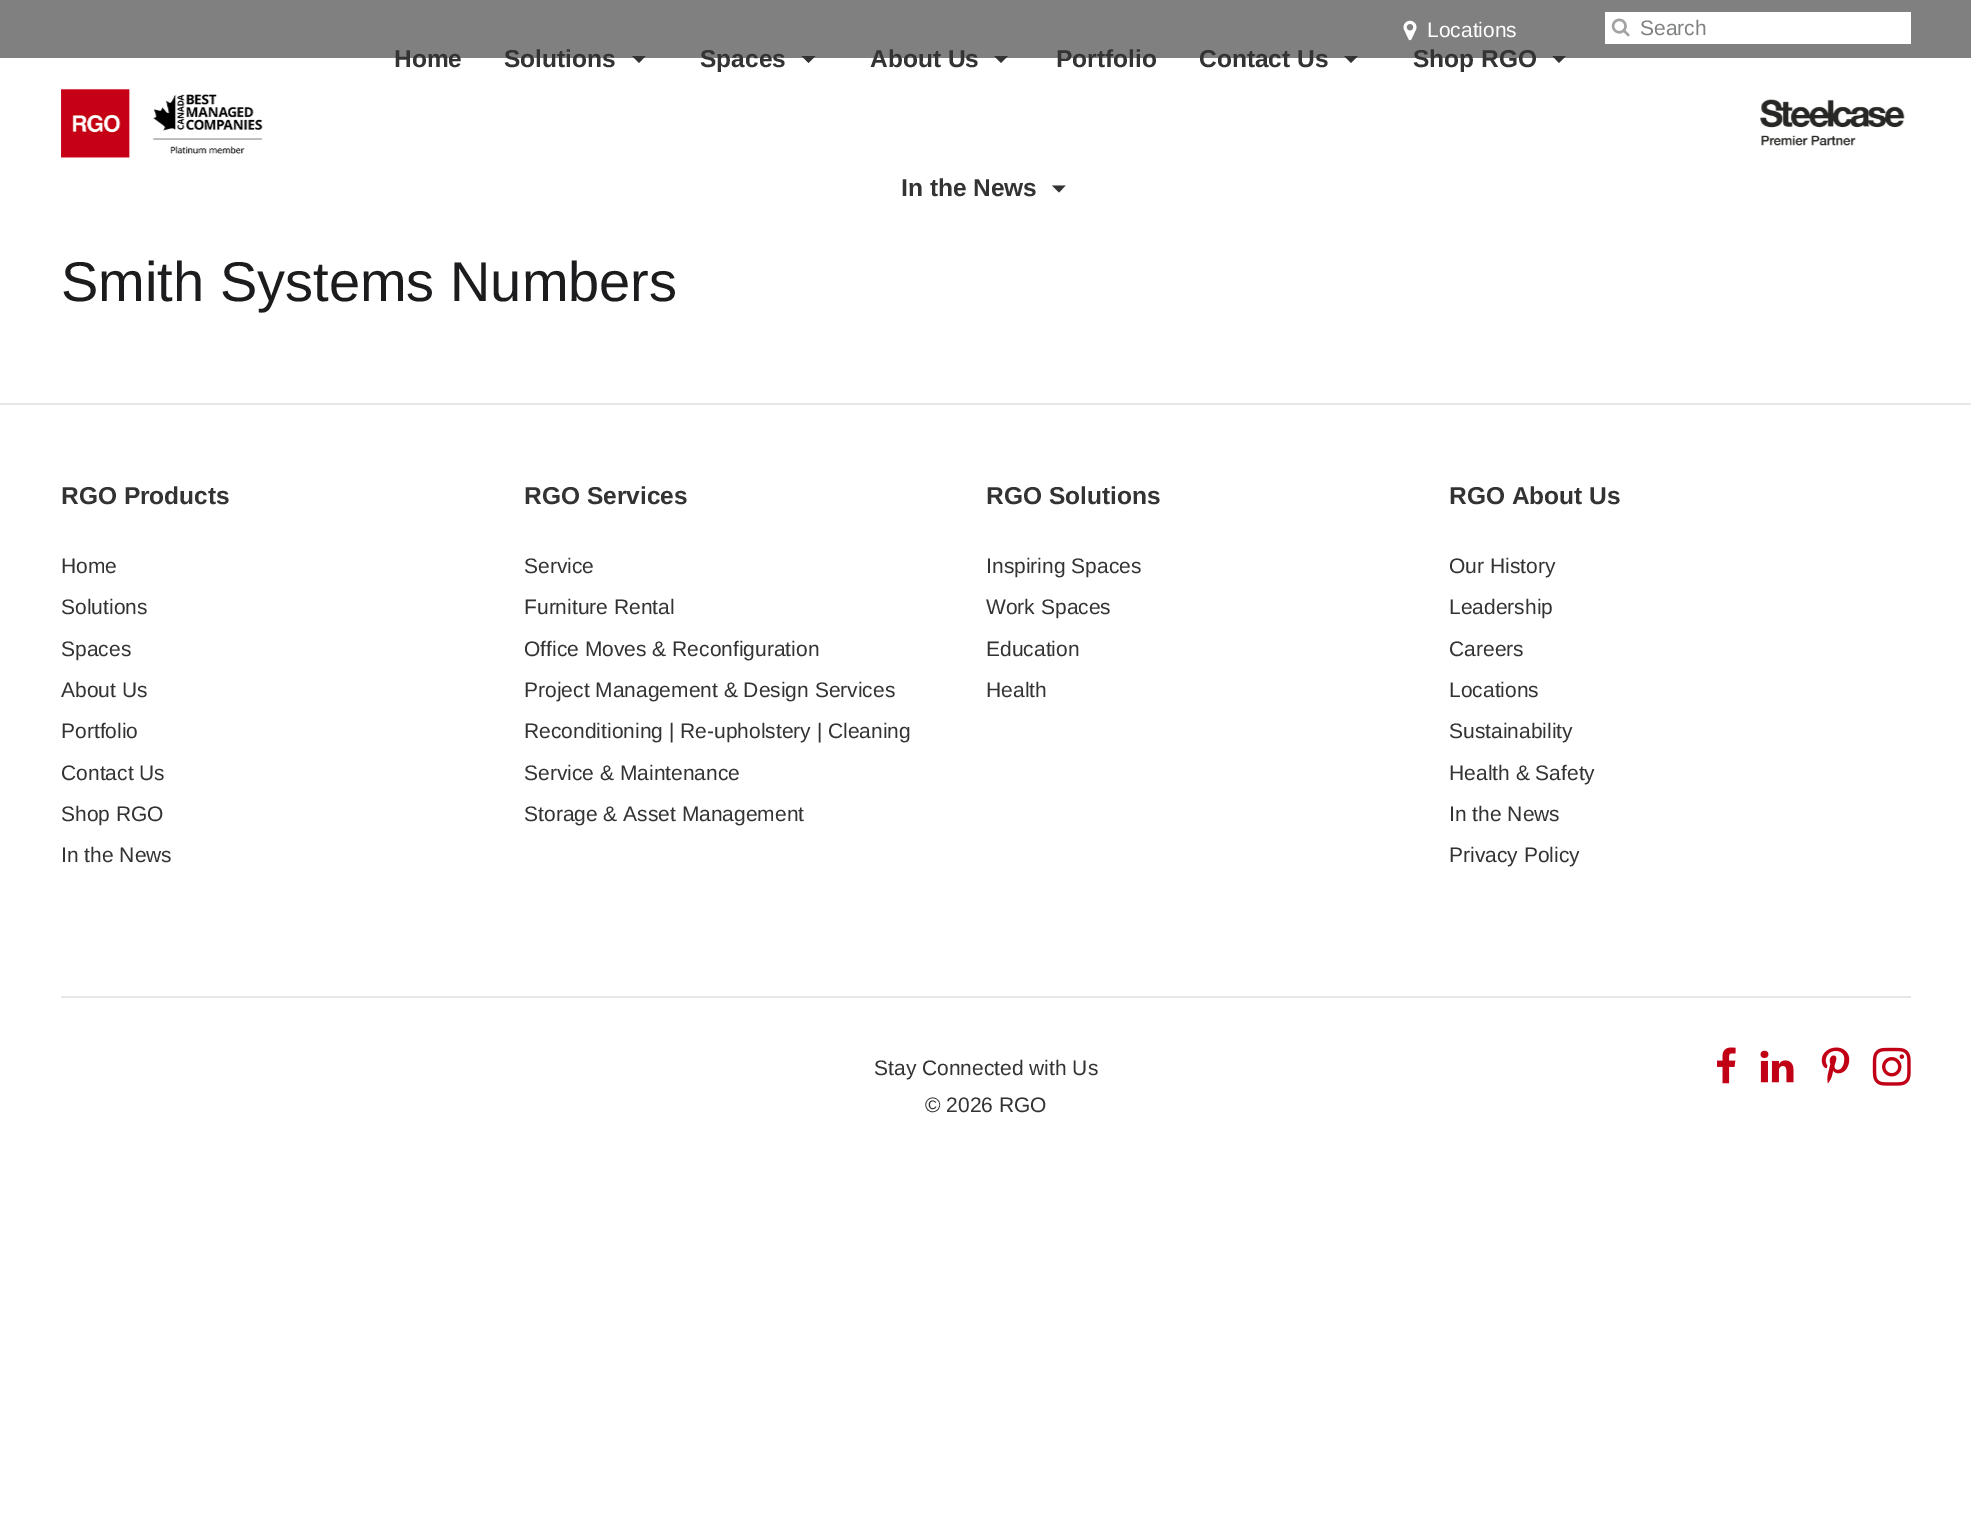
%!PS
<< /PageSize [1971 1539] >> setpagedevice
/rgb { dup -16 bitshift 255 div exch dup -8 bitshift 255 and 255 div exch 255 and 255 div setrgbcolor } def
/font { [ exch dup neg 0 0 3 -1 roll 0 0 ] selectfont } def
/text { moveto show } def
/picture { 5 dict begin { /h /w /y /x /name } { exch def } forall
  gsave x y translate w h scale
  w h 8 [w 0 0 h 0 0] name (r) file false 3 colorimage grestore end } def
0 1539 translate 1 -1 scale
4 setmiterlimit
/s1 { /LiberationSans-Regular 21 font 16#FFFFFF rgb } def
/s2 { /LiberationSans-Regular 21 font 16#7F8180 rgb } def
/s3 { /LiberationSans-Bold 24.5 font 16#333333 rgb } def
/s4 { /LiberationSans-Regular 56 font 16#1C1C1E rgb } def
/s5 { /LiberationSans-Regular 21 font 16#333333 rgb } def
16#FFFFFF rgb
0 0 1971 1539 rectfill
16#808080 rgb
0 0 1971 58 rectfill
(pic1.raw) 1403 20 14 21 picture
s1
(Locations) 1427 37 text
1605 12 306 32 rectfill
(pic2.raw) 1611 18 19 19 picture
s2
(Search) 1640 35 text
(pic3.raw) 61 89 202 69 picture
s3
(Home) 394 67 text
(Solutions) 504 67 text
632 56 moveto 639 63 lineto 645.5 56 lineto closepath fill
(Spaces) 700 67 text
801.5 56 moveto 808.5 63 lineto 815.5 56 lineto closepath fill
(About Us) 870 67 text
994 56 moveto 1001 63 lineto 1008 56 lineto closepath fill
(Portfolio) 1056 67 text
(Contact Us) 1199 67 text
1344 56 moveto 1351 63 lineto 1358 56 lineto closepath fill
(Shop RGO) 1413 67 text
1552.5 56 moveto 1559 63 lineto 1566 56 lineto closepath fill
(In the News) 901 196 text
1052 185.5 moveto 1059 192.5 lineto 1065.5 185.5 lineto closepath fill
(pic4.raw) 1760 99 145 47 picture
s4
(Smith Systems Numbers) 61 301 text
16#E7E7E7 rgb
0 403 1971 2 rectfill
s3
(RGO Products) 61 504 text
s5
(Home) 61 573 text
(Solutions) 61 614 text
(Spaces) 61 656 text
(About Us) 61 697 text
(Portfolio) 61 738 text
(Contact Us) 61 780 text
(Shop RGO) 61 821 text
(In the News) 61 862 text
s3
(RGO Services) 524 504 text
s5
(Service) 524 573 text
(Furniture Rental) 524 614 text
(Office Moves & Reconfiguration) 524 656 text
(Project Management & Design Services) 524 697 text
(Reconditioning | Re-upholstery | Cleaning) 524 738 text
(Service & Maintenance) 524 780 text
(Storage & Asset Management) 524 821 text
s3
(RGO Solutions) 986 504 text
s5
(Inspiring Spaces) 986 573 text
(Work Spaces) 986 614 text
(Education) 986 656 text
(Health) 986 697 text
s3
(RGO About Us) 1449 504 text
s5
(Our History) 1449 573 text
(Leadership) 1449 614 text
(Careers) 1449 656 text
(Locations) 1449 697 text
(Sustainability) 1449 738 text
(Health & Safety) 1449 780 text
(In the News) 1449 821 text
(Privacy Policy) 1449 862 text
16#E7E7E7 rgb
61 996 1850 2 rectfill
s5
(Stay Connected with Us) 874 1075 text
(pic5.raw) 1717 1047 19 37 picture
(pic6.raw) 1760 1050 34 33 picture
(pic7.raw) 1821 1047 29 37 picture
(pic8.raw) 1872 1047 39 39 picture
(© 2026 RGO) 925 1112 text
showpage
